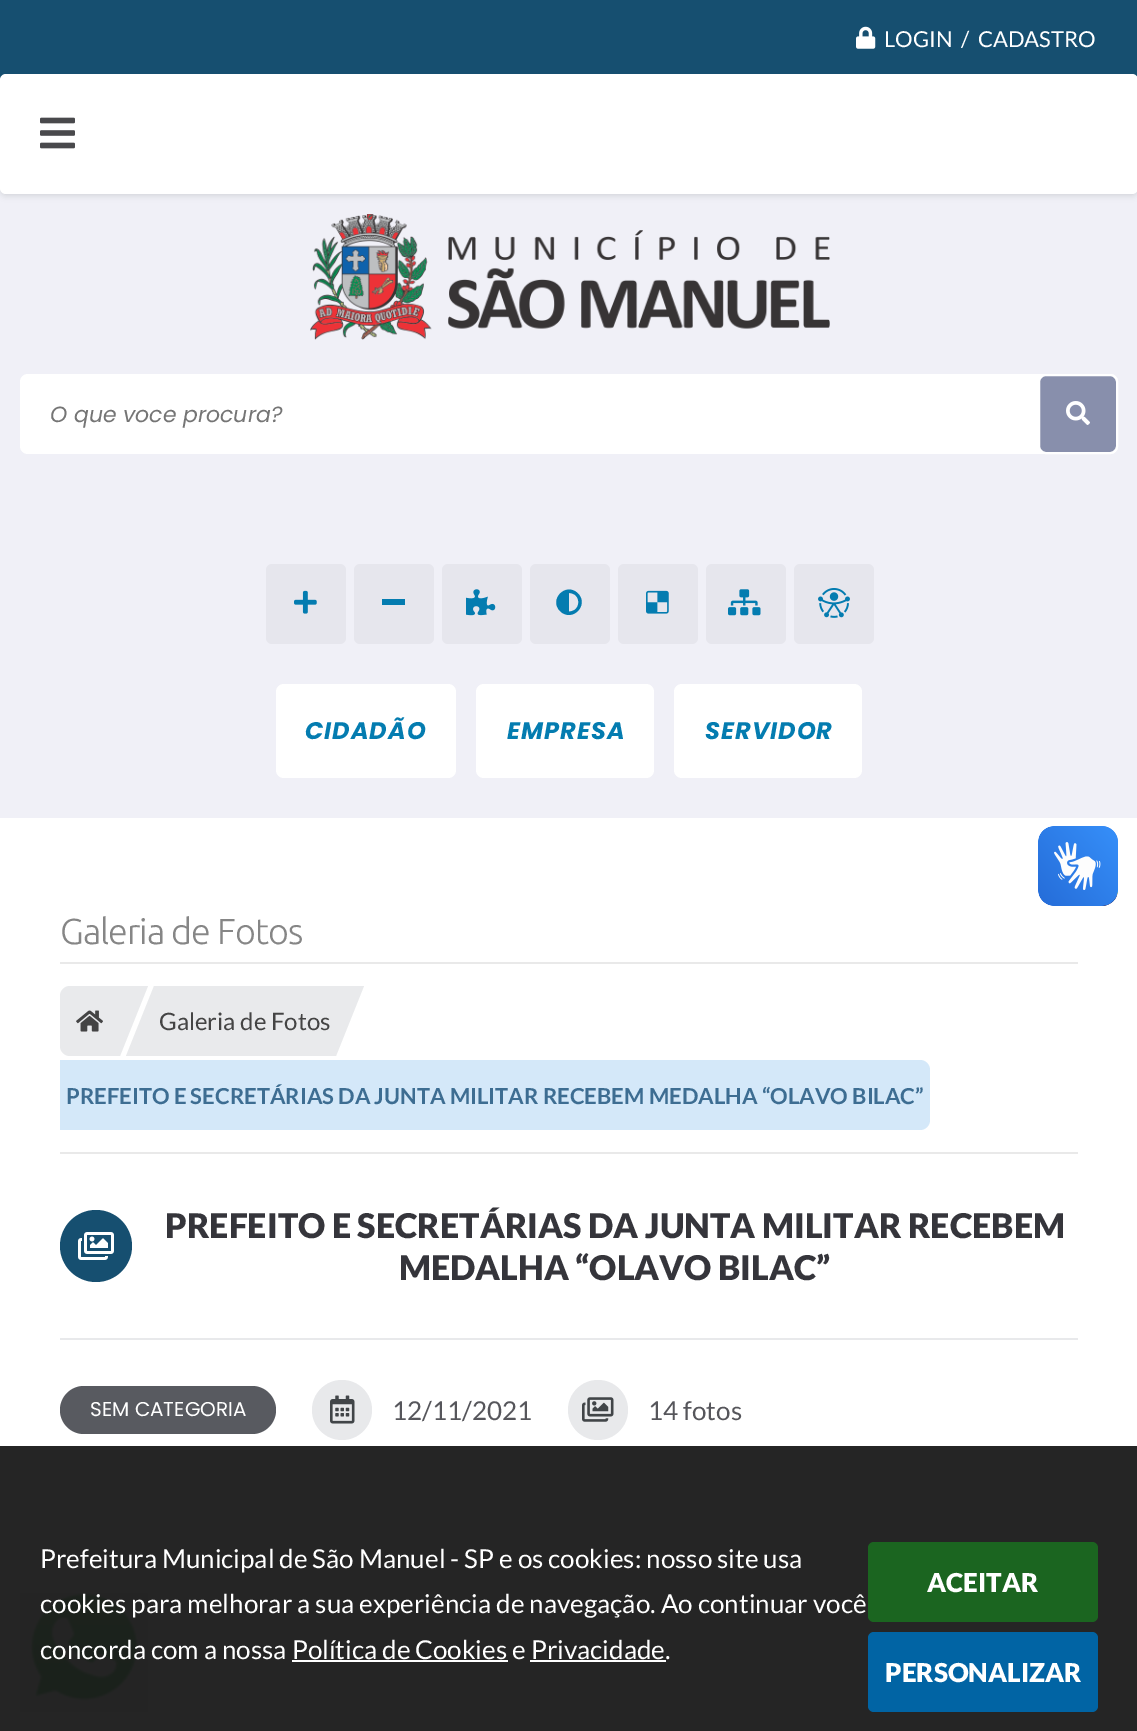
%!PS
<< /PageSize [1137 1731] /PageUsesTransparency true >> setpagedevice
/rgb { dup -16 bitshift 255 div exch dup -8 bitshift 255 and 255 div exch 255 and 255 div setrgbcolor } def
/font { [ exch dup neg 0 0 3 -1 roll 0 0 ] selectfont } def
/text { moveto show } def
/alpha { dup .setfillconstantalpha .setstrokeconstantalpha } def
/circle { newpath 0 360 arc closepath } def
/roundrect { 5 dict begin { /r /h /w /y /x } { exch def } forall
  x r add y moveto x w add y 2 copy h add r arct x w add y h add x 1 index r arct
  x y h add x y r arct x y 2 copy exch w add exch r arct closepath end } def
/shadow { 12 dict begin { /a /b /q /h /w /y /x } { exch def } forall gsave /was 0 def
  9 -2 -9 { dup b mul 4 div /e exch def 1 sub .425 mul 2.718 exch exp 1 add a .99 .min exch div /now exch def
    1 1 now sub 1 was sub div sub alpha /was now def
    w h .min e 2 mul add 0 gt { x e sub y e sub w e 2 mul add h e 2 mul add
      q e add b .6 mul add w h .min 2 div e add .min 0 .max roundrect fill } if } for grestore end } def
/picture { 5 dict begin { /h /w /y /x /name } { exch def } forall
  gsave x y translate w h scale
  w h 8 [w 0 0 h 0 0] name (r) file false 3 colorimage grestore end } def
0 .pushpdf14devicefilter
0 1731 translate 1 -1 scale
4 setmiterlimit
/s1 { /Lato-Regular 22 font 16#FFFFFF rgb } def
/s2 { /Poppins-Italic 22 font 16#757575 rgb } def
/s3 { /Lato-Regular 26 font 16#FFFFFF rgb } def
/s4 { /Lato-Black 26 font 16#FFFFFF rgb } def
/s5 { /Lato-Regular 24 font 16#444444 rgb } def
/s6 { /Lato-Bold 22 font 16#3D6D92 rgb } def
/s7 { /Lato-Black 34 font 16#35353B rgb } def
/s8 { /Poppins-Regular 20 font 16#FFFFFF rgb } def
/s9 { /Lato-Regular 26 font 16#56565B rgb } def
16#FFFFFF rgb
0 0 1137 1731 rectfill
16#252525 rgb
0 1446 1137 285 rectfill
16#F0F0F7 rgb
0 188 1137 630 rectfill
16#164F70 rgb
0 74 1137 6 rectfill
16#191A1D rgb
0 76 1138 120 6 3 0.12 shadow
16#164F70 rgb
0 0 1137 74 rectfill
(pic1.raw) 856 26 20 23 picture
s1
(LOGIN  /  CADASTRO) 884 47 text
0 74 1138 120 6 roundrect fill
(pic2.raw) 40 117 35 32 picture
(pic3.raw) 310 214 520 126 picture
20 374 1098 80 8 roundrect fill
s2
(O que voce procura?) 50 422 text
16#888FAC rgb
1039 375 78 78 7 roundrect gsave fill grestore
16#FFFFFF rgb
2 setlinewidth
stroke
(pic4.raw) 1066 401 24 24 picture
16#E6E6ED rgb
266 564 80 80 6 roundrect fill
(pic5.raw) 294 590 23 24 picture
354 564 80 80 6 roundrect fill
16#047CB0 rgb
382 599 23 6 rectfill
16#E6E6ED rgb
442 564 80 80 6 roundrect fill
(pic6.raw) 466 589 30 27 picture
530 564 80 80 6 roundrect fill
16#047CB0 rgb
560 611 moveto 548.5 599.5 566 581.5 578 593.5 curveto 589.5 605 572 623 560 611 curveto closepath 569 611.5 moveto 581.5 611.5 581.5 593 569 593 curveto closepath fill
16#E6E6ED rgb
618 564 80 80 6 roundrect fill
(pic7.raw) 646 590 23 24 picture
706 564 80 80 6 roundrect fill
(pic8.raw) 728 589 33 27 picture
794 564 80 80 6 roundrect fill
(pic9.raw) 818 588 32 30 picture
16#FFFFFF rgb
276 684 180 94 8 roundrect fill
/Poppins-BoldItalic 24 font
16#047CB0 rgb
305 739 moveto 1 0 (CIDADÃO) ashow
16#FFFFFF rgb
476 684 178 94 8 roundrect fill
16#047CB0 rgb
507 739 moveto 1 0 (EMPRESA) ashow
16#FFFFFF rgb
674 684 188 94 8 roundrect fill
16#047CB0 rgb
705 739 moveto 1 0 (SERVIDOR) ashow
(pic10.raw) 1038 826 80 80 picture
(pic11.raw) 1038 826 80 80 picture
s3
(Prefeitura Municipal de São Manuel - SP e os cookies: nosso site usa) 40 1568 text
(pic16.raw) 20 1593 128 119 picture
(cookies para melhorar a sua experiência de navegação. Ao continuar você) 40 1613 text
(concorda com a nossa Política de Cookies e Privacidade.) 40 1659 text
292 1660 216 2 rectfill
530 1660 136 2 rectfill
16#1B6520 rgb
868 1542 230 80 6 roundrect fill
s4
(ACEITAR) 927 1592 text
16#0164A4 rgb
868 1632 230 80 6 roundrect fill
s4
(PERSONALIZAR) 885 1682 text
/Ubuntu-Light 36 font
16#868686 rgb
60 944 moveto -1 0 (Galeria de Fotos) ashow
16#E9E9E9 rgb
60 962 1018 2 rectfill
60 1152 1018 2 rectfill
16#E9EAEC rgb
70 986 moveto 120 986 lineto 120 1056 lineto 70 1056 lineto 64.5 1056 60 1051.5 60 1046 curveto 60 996 lineto 60 990.5 64.5 986 70 986 curveto closepath fill
(pic12.raw) 76 1010 27 22 picture
120 986 moveto 148 986 lineto 120 1056 lineto closepath fill
154 986 182 70 rectfill
154 1056 moveto 126 1056 lineto 154 986 lineto closepath fill
s5
(Galeria de Fotos) 159 1030 text
16#E9EAEC rgb
336 986 moveto 364 986 lineto 336 1056 lineto closepath fill
16#D4E8F9 rgb
60 1060 moveto 920 1060 lineto 925.5 1060 930 1064.5 930 1070 curveto 930 1120 lineto 930 1125.5 925.5 1130 920 1130 curveto 60 1130 lineto closepath fill
s6
(PREFEITO E SECRETÁRIAS DA JUNTA MILITAR RECEBEM MEDALHA “OLAVO BILAC”) 66 1104 text
16#164F70 rgb
96 1246 36 circle fill
(pic13.raw) 78 1232 36 28 picture
s7
(PREFEITO E SECRETÁRIAS DA JUNTA MILITAR RECEBEM) 165 1238 text
(MEDALHA “OLAVO BILAC”) 399 1280 text
16#E8E9EB rgb
60 1338 1018 2 rectfill
16#585A60 rgb
60 1386 216 48 24 roundrect fill
s8
(SEM CATEGORIA) 90 1416 text
16#E8E9EB rgb
342 1410 30 circle fill
(pic14.raw) 330 1395 25 29 picture
s9
(12/11/2021) 392 1420 text
16#E8E9EB rgb
598 1410 30 circle fill
(pic15.raw) 582 1397 32 25 picture
s9
(14 fotos) 648 1420 text
.poppdf14devicefilter showpage
